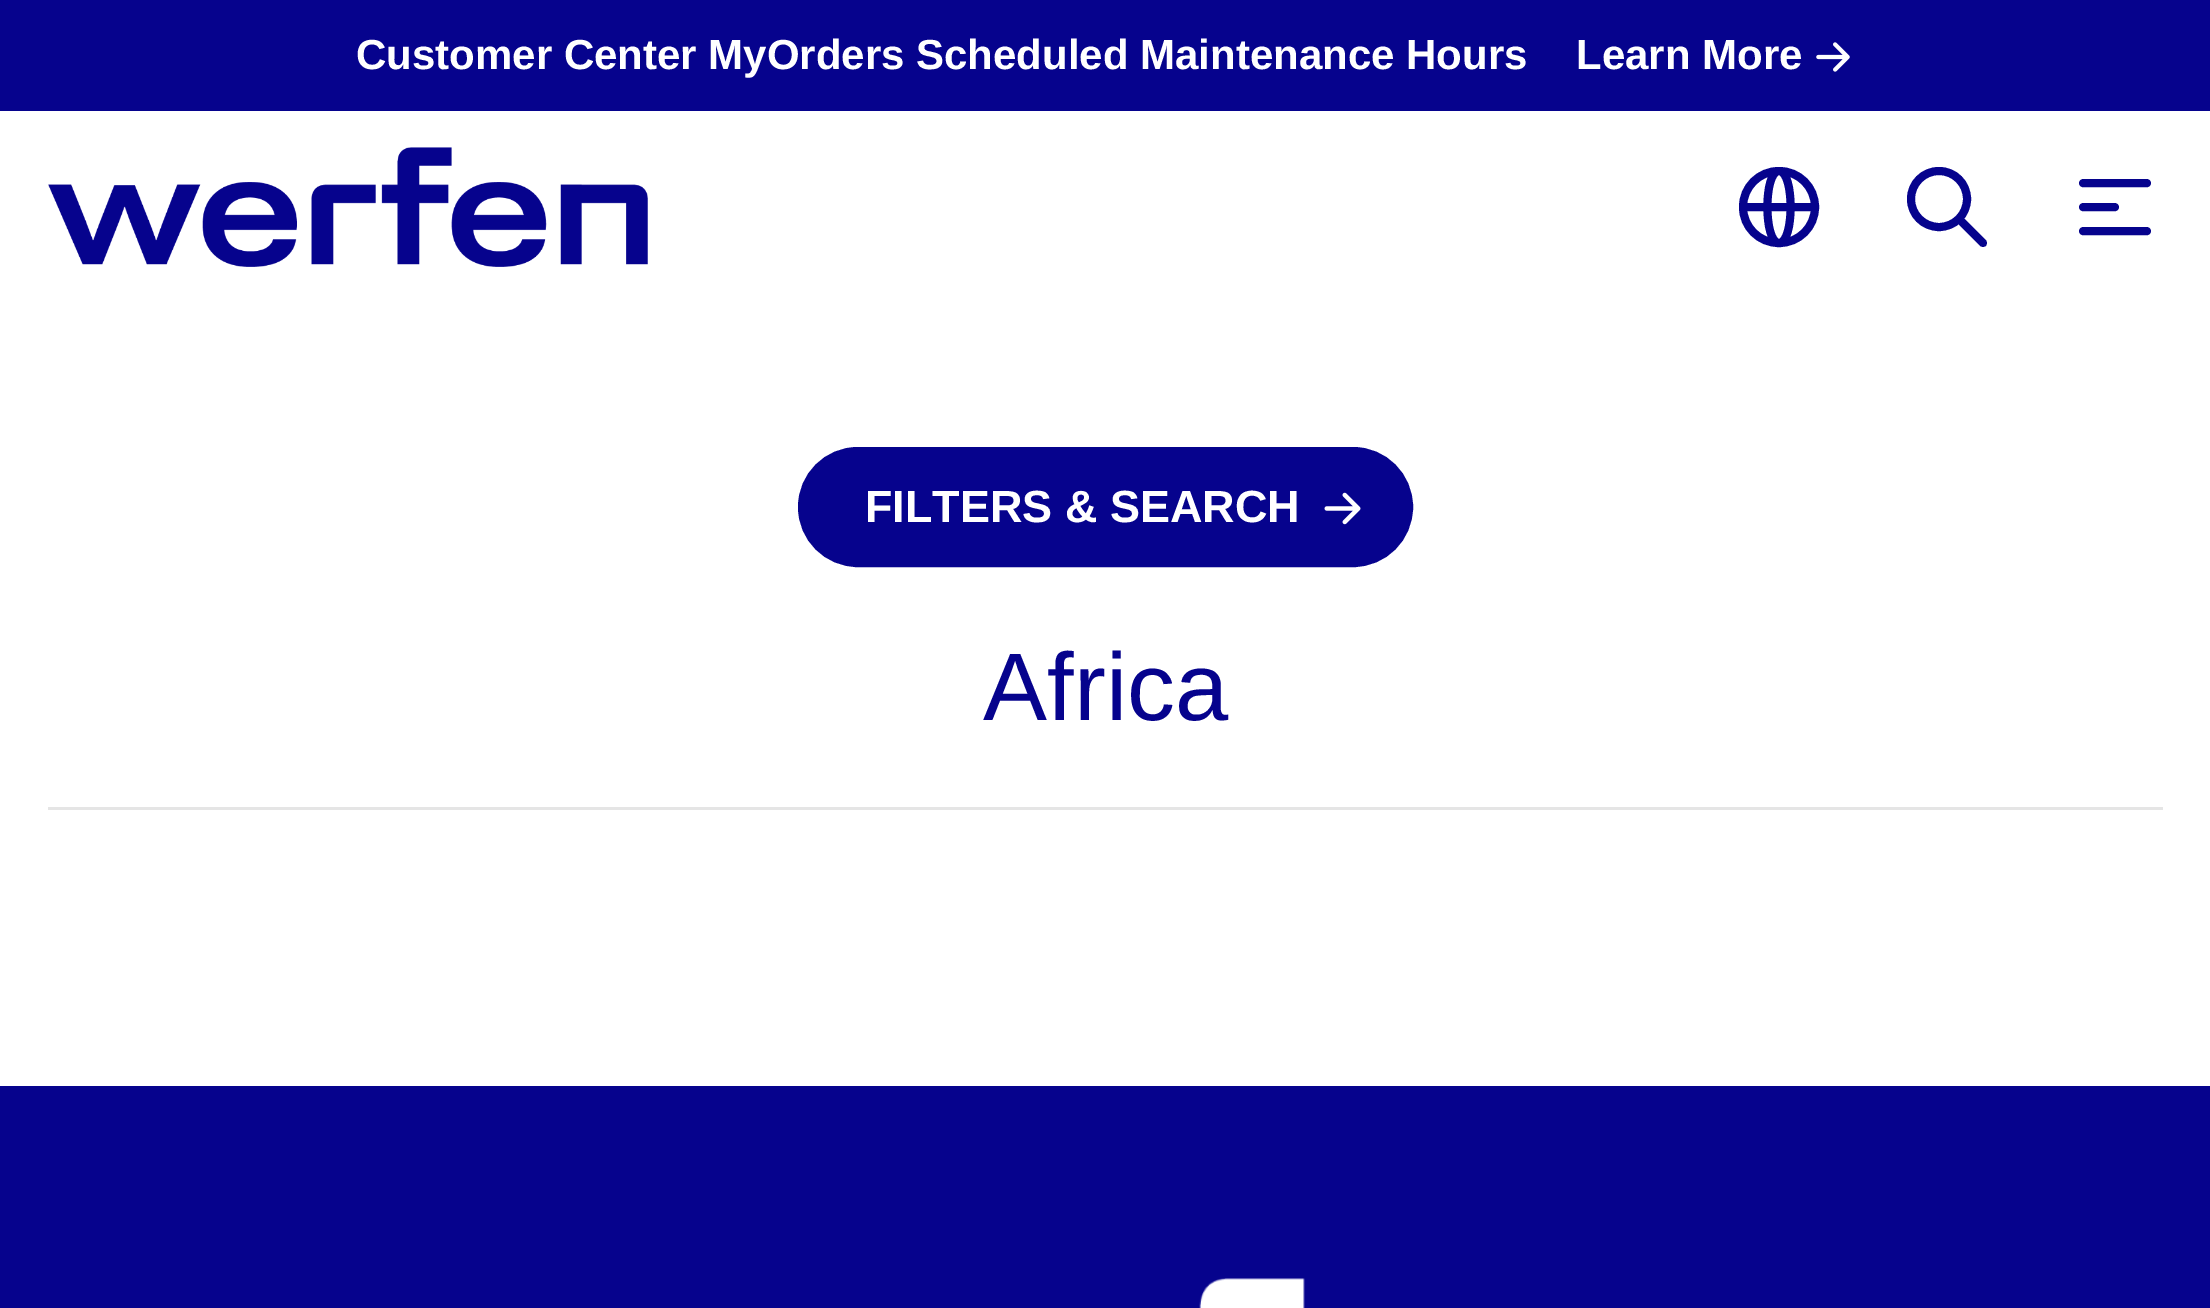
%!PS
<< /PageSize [2210 1308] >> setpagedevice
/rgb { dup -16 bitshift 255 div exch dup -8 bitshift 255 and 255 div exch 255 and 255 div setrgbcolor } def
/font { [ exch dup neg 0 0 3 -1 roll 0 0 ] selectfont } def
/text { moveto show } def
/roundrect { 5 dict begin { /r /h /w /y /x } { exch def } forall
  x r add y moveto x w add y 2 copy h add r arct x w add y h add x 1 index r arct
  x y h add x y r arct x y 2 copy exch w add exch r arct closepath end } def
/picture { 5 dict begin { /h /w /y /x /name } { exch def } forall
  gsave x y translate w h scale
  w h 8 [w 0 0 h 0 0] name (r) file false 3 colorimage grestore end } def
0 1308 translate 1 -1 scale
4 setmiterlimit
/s1 { /LiberationSans-Bold 42 font 16#FFFFFF rgb } def
/s2 { /LiberationSans-Bold 45 font 16#FFFFFF rgb } def
/s3 { /LiberationSans-Regular 96 font 16#06038D rgb } def
16#FFFFFF rgb
0 0 2210 1308 rectfill
16#06038D rgb
0 0 2210 111 rectfill
s1
(Customer Center MyOrders Scheduled Maintenance Hours) 356 69 text
(Learn More) 1576 69 text
(pic1.raw) 1816 42 34 30 picture
(pic2.raw) 48 147 600 120 picture
16#06038D rgb
8 setlinewidth
1 setlinecap
1 setlinejoin
1815 207 moveto 1815 227 1799 243 1779 243 curveto 1815 207 moveto 1815 187 1799 171 1779 171 curveto 1815 207 moveto 1743 207 lineto 1779 243 moveto 1759 243 1743 227 1743 207 curveto 1779 243 moveto 1794.5 243 1794.5 171 1779 171 curveto 1779 243 moveto 1763.5 243 1763.5 171 1779 171 curveto 1743 207 moveto 1743 187 1759 171 1779 171 curveto stroke
1983 243 moveto 1959 219 lineto 1967 199 moveto 1967 214.5 1954.5 227 1939 227 curveto 1923.5 227 1911 214.5 1911 199 curveto 1911 183.5 1923.5 171 1939 171 curveto 1954.5 171 1967 183.5 1967 199 curveto closepath stroke
2083 183 moveto 2147 183 lineto 2083 207 moveto 2115 207 lineto 2083 231 moveto 2147 231 lineto stroke
801 450 609 114 57 roundrect gsave fill grestore
6 setlinewidth
0 setlinecap
0 setlinejoin
stroke
s2
(FILTERS & SEARCH) 865 522 text
(pic3.raw) 1324 492 37 33 picture
16#E5E5E5 rgb
48 807 2115 3 rectfill
s3
(Africa) 983 720 text
0 1086 2210 222 rectfill
(pic4.raw) 1199 1278 106 30 picture
showpage
